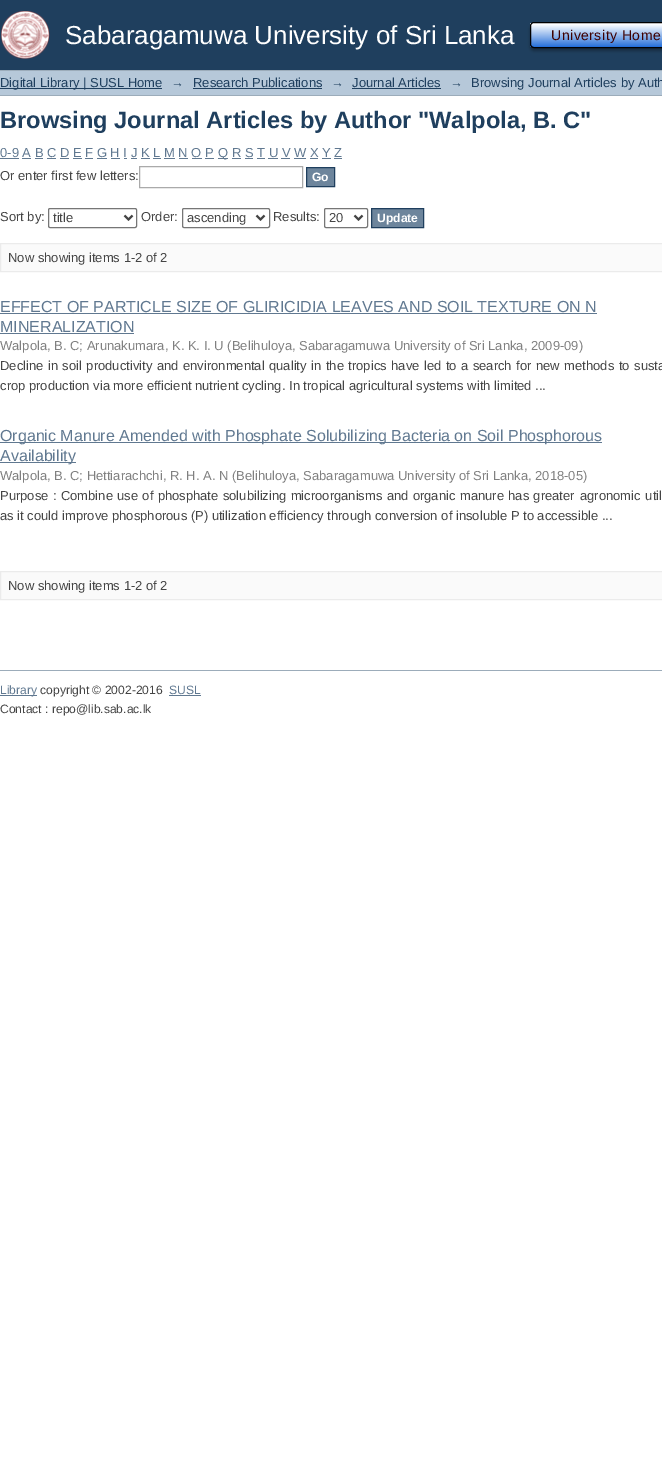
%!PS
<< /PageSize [662 1482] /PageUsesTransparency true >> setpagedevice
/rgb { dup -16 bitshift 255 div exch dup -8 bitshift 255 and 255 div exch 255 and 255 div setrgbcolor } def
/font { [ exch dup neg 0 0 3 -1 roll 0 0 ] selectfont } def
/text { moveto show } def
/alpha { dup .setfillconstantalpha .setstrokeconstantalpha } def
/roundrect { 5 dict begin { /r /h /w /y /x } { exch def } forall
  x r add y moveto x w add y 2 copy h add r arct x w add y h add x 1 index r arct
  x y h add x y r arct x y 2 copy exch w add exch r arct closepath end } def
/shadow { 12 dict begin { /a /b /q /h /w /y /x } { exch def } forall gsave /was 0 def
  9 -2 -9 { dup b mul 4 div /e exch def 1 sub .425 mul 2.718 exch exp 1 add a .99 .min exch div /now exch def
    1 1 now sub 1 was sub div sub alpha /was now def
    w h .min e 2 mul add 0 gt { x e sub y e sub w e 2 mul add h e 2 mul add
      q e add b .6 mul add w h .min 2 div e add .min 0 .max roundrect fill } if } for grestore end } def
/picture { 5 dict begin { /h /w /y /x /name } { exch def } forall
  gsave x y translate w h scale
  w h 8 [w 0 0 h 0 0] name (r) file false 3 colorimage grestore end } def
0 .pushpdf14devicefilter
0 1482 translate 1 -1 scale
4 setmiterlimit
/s1 { /LiberationSans-Regular 26 font 16#FFFFFF rgb } def
/s2 { /LiberationSans-Regular 13 font 16#1F3F5E rgb } def
/s3 { /LiberationSans-Bold 23.65 font 16#1F3F5E rgb } def
/s4 { /LiberationSans-Regular 13 font 16#607890 rgb } def
/s5 { /LiberationSans-Regular 13 font 16#444444 rgb } def
/s6 { /LiberationSans-Bold 12.1 font 16#FFFFFF rgb } def
/s7 { /LiberationSans-Regular 16 font 16#607890 rgb } def
/s8 { /LiberationSans-Regular 13 font 16#808080 rgb } def
/s9 { /LiberationSans-Regular 12.1 font 16#607890 rgb } def
/s10 { /LiberationSans-Regular 12.1 font 16#444444 rgb } def
16#FFFFFF rgb
0 0 662 1482 rectfill
16#1F3F5E rgb
0 0 662 70 rectfill
(pic1.raw) 1 10 49 49 picture
s1
(Sabaragamuwa University of Sri Lanka) 65 44 text
16#000000 rgb
530 25 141 26 4 1.5 0.3 shadow
gsave
530 22 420 26 4 roundrect clip newpath
gsave 530 23 moveto 662 23 lineto 662 47 lineto 530 47 lineto closepath clip newpath
<< /ShadingType 2 /ColorSpace /DeviceRGB /Coords [531 23 531 47] /Extend [true true] /Function << /FunctionType 3 /Domain [0 1] /Functions [<< /FunctionType 2 /Domain [0 1] /C0 [1 1 1] /C1 [1 1 1] /N 1 >> << /FunctionType 2 /Domain [0 1] /C0 [1 1 1] /C1 [0.145 0.435 0.851] /N 1 >>] /Bounds [0.05] /Encode [0 1 0 1] >> >> shfill grestore
grestore
530.5 22.5 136 25 3.5 roundrect stroke
/LiberationSans-Regular 14 font
16#3E0000 rgb
551 40 moveto 0.5 0 (University Home) ashow
16#B6C8D9 rgb
0 71 662 24 rectfill
16#9CACBA rgb
0 70 662 1 rectfill
0 95 662 1 rectfill
16#1F3F5E rgb
0 88 162 1 rectfill
s2
(Digital Library | SUSL Home) 0 87 text
(→) 171 87 text
(Research Publications) 193 87 text
193 88 129 1 rectfill
(→) 331 87 text
(Journal Articles) 352 87 text
352 88 89 1 rectfill
(→) 450 87 text
(Browsing Journal Articles by Auth) 471 87 text
s3
(Browsing Journal Articles by Author "Walpola, B. C") 0 128 text
s4
(0-9 A B C D E F G H I J K L M N O P) 0 157 text
0 158 19 1 rectfill
218 158 10 1 rectfill
(Q R S T U V W X Y Z) 218 157 text
22 158 9 1 rectfill
35 158 8 1 rectfill
47 158 9 1 rectfill
60 158 9 1 rectfill
73 158 9 1 rectfill
85 158 8 1 rectfill
97 158 10 1 rectfill
111 158 9 1 rectfill
124 158 3 1 rectfill
131 158 6 1 rectfill
141 158 9 1 rectfill
153 158 8 1 rectfill
164 158 11 1 rectfill
179 158 9 1 rectfill
192 158 10 1 rectfill
205 158 9 1 rectfill
232 158 9 1 rectfill
245 158 8 1 rectfill
257 158 8 1 rectfill
268 158 10 1 rectfill
281 158 9 1 rectfill
294 158 12 1 rectfill
310 158 8 1 rectfill
322 158 9 1 rectfill
334 158 8 1 rectfill
s5
(Or enter first few letters:) 0 180 text
16#AAAAAA rgb
139.5 166.5 163 21 rectstroke
16#6D859C rgb
306.5 167.5 moveto 334.5 167.5 lineto 334.5 186.5 lineto 306.5 186.5 lineto closepath gsave fill grestore
16#1F3F5E rgb
stroke
s6
(Go) 312 181 text
s5
(Sort by:) 0 221 text
16#767676 rgb
48.5 208.5 88 19 1.5 roundrect stroke
16#444444 rgb
2 setlinewidth
124.5 215.5 moveto 128.5 219.5 lineto 132.5 215.5 lineto stroke
(title) 53 222 text
(Order:) 141 221 text
16#767676 rgb
1 setlinewidth
182.5 208.5 87 19 1.5 roundrect stroke
16#444444 rgb
2 setlinewidth
256.5 215.5 moveto 260.5 219.5 lineto 264.5 215.5 lineto stroke
(ascending) 187 222 text
(Results:) 273 221 text
16#767676 rgb
1 setlinewidth
324.5 208.5 43 19 1.5 roundrect stroke
16#444444 rgb
2 setlinewidth
354.5 215.5 moveto 358.5 219.5 lineto 362.5 215.5 lineto stroke
(20) 329 222 text
16#6D859C rgb
371.5 208.5 moveto 423.5 208.5 lineto 423.5 227.5 lineto 371.5 227.5 lineto closepath gsave fill grestore
16#1F3F5E rgb
1 setlinewidth
stroke
s6
(Update) 377 222 text
16#FAFAFA rgb
0.5 243.5 moveto 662.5 243.5 lineto 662.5 271.5 lineto 0.5 271.5 lineto closepath gsave fill grestore
16#EBEBEB rgb
stroke
s5
(Now showing items 1-2 of 2) 8 262 text
s7
(EFFECT OF PARTICLE SIZE OF GLIRICIDIA LEAVES AND SOIL TEXTURE ON N) 0 312 text
0 313 597 1 rectfill
(MINERALIZATION) 0 332 text
0 333 134 1 rectfill
s8
(Walpola, B. C; Arunakumara, K. K. I. U \(Belihuloya, Sabaragamuwa University of Sri Lanka, 2009-09\)) 0 350 text
16#444444 rgb
0 370 moveto 0.9 0 32 (Decline in soil productivity and environmental quality in the tropics have led to a search for) widthshow
536 370 moveto 0.9 0 32 (new methods to susta) widthshow
(crop production via more efficient nutrient cycling. In tropical agricultural systems with limited ...) 0 390 text
16#607890 rgb
0 442 602 1 rectfill
s7
(Organic Manure Amended with Phosphate Solubilizing Bacteria on Soil Phosphorous) 0 441 text
0 462 76 1 rectfill
(Availability) 0 461 text
s8
(Walpola, B. C; Hettiarachchi, R. H. A. N \(Belihuloya, Sabaragamuwa University of Sri Lanka, 2018-05\)) 0 480 text
16#444444 rgb
0 500 moveto 0.75 0 32 (Purpose : Combine use of phosphate solubilizing microorganisms and organic manure has greater) widthshow
580 500 moveto 1 0 32 (agronomic util) widthshow
(as it could improve phosphorous \(P\) utilization efficiency through conversion of insoluble P to accessible ...) 0 520 text
16#FAFAFA rgb
0.5 571.5 moveto 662.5 571.5 lineto 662.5 599.5 lineto 0.5 599.5 lineto closepath gsave fill grestore
16#EBEBEB rgb
stroke
s5
(Now showing items 1-2 of 2) 8 590 text
16#9CACBA rgb
0 670 662 1 rectfill
16#607890 rgb
0 695 37 1 rectfill
s9
(Library) 0 694 text
s10
(copyright © 2002-2016) 40 694 text
s9
(SUSL) 169 694 text
169 695 32 1 rectfill
s10
(Contact : repo@lib.sab.ac.lk) 0 713 text
.poppdf14devicefilter showpage
